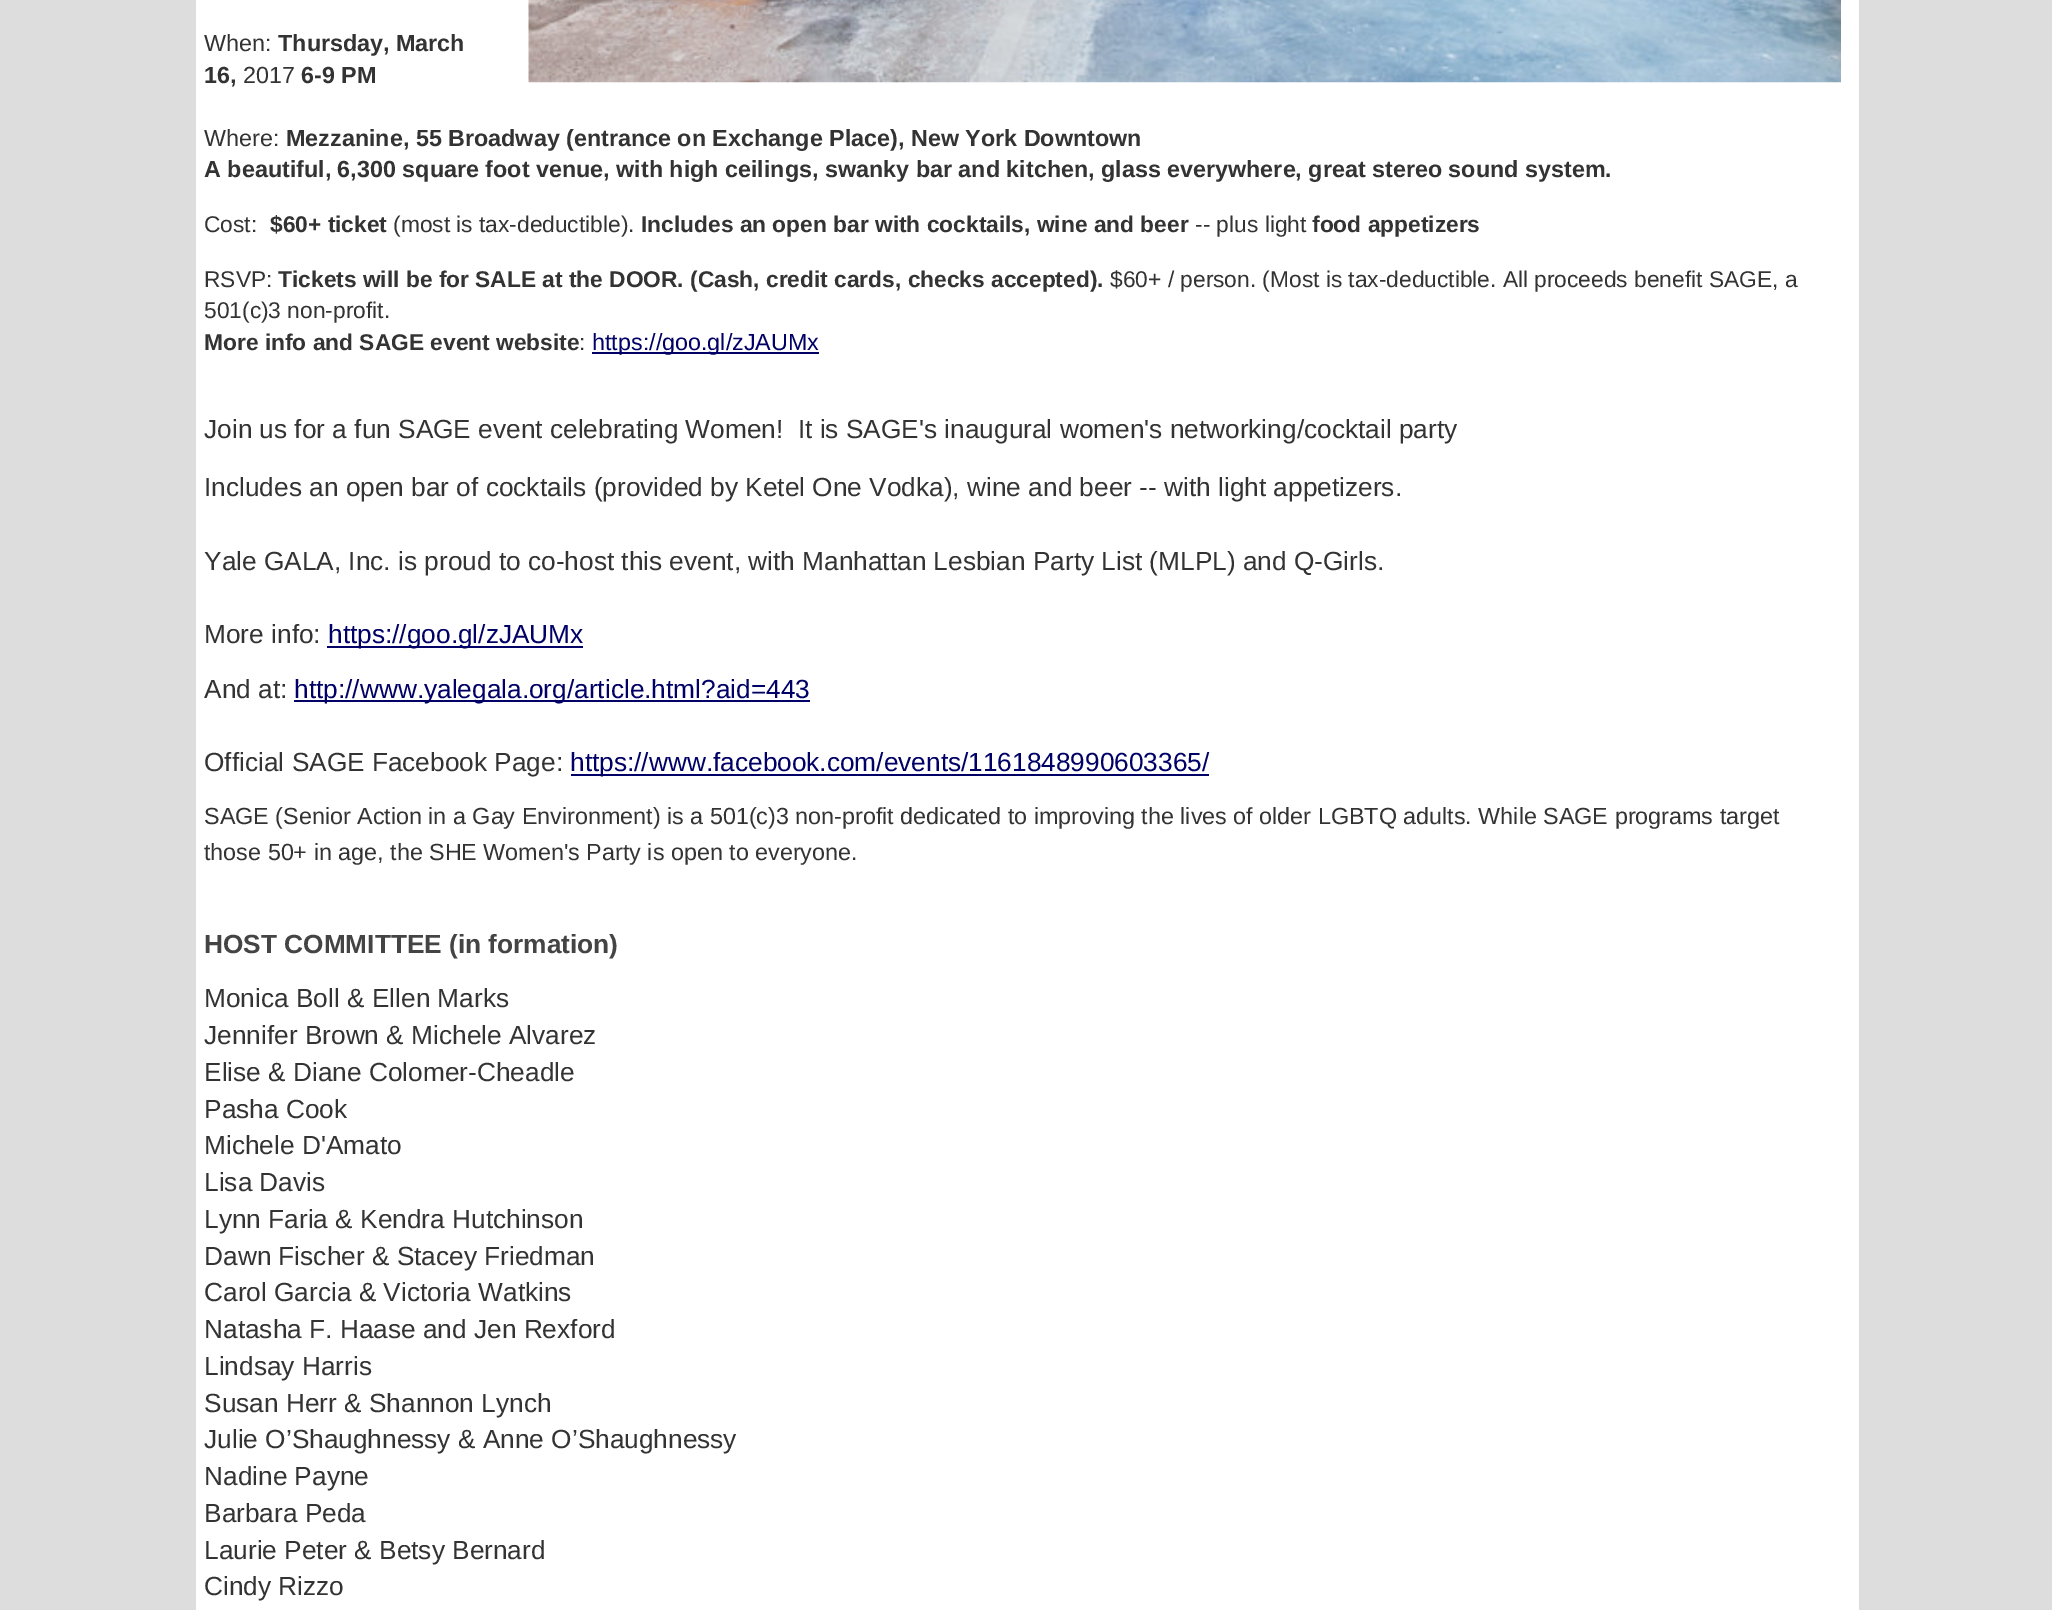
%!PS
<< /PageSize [2052 1610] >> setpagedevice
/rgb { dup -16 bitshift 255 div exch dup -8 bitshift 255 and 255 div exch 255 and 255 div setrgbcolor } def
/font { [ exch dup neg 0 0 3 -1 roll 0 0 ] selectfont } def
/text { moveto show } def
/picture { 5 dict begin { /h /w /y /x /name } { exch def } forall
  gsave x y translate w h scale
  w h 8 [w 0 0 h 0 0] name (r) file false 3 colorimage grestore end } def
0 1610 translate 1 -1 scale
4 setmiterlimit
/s1 { /LiberationSans-Regular 23.33 font 16#333333 rgb } def
/s2 { /LiberationSans-Bold 23.33 font 16#333333 rgb } def
/s3 { /LiberationSans-Regular 22.75 font 16#333333 rgb } def
/s4 { /LiberationSans-Bold 22.75 font 16#333333 rgb } def
/s5 { /LiberationSans-Regular 23.33 font 16#000066 rgb } def
/s6 { /LiberationSans-Regular 26.25 font 16#333333 rgb } def
/s7 { /LiberationSans-Regular 26.25 font 16#000066 rgb } def
/s8 { /LiberationSans-Bold 26.25 font 16#444444 rgb } def
16#DEDDDD rgb
0 0 2052 1610 rectfill
16#FFFFFF rgb
196 0 1663 1610 rectfill
(pic1.raw) 528 0 1313 83 picture
s1
(When:) 204 51 text
s2
(Thursday, March) 278 51 text
(16,) 204 83 text
s1
(2017) 243 83 text
s2
(6-9 PM) 301 83 text
s1
(Where:) 204 146 text
s2
(Mezzanine, 55 Broadway \(entrance on Exchange Place\), New York Downtown) 286 146 text
(A beautiful, 6,300 square foot venue, with high ceilings, swanky bar and kitchen, glass everywhere, great stereo sound system.) 204 177 text
s3
(Cost:) 204 232 text
s4
($60+ ticket) 270 232 text
s3
(\(most is tax-deductible\).) 393 232 text
s4
(Includes an open bar with cocktails, wine and beer) 641 232 text
s3
(-- plus light) 1195 232 text
s4
(food appetizers) 1312 232 text
s3
(RSVP:) 204 287 text
s4
(Tickets will be for SALE at the DOOR. \(Cash, credit cards, checks accepted\).) 278 287 text
s3
($60+ / person. \(Most is tax-deductible. All proceeds benefit SAGE, a) 1110 287 text
(501\(c\)3 non-profit.) 204 318 text
s4
(More info and SAGE event website) 204 350 text
s3
(:) 579 350 text
16#000066 rgb
592 352 227 2 rectfill
s5
(https://goo.gl/zJAUMx) 592 350 text
s6
(Join us for a fun SAGE event celebrating Women!  It is SAGE's inaugural women's networking/cocktail party) 204 438 text
(Includes an open bar of cocktails \(provided by Ketel One Vodka\), wine and beer -- with light appetizers.) 204 496 text
(Yale GALA, Inc. is proud to co-host this event, with Manhattan Lesbian Party List \(MLPL\) and Q-Girls.) 204 570 text
(More info:) 204 643 text
16#000066 rgb
327 646 256 2 rectfill
(https://goo.gl/zJAUMx) 328 643 text
s6
(And at:) 204 698 text
16#000066 rgb
294 700 516 2 rectfill
(http://www.yalegala.org/article.html?aid=443) 294 698 text
s6
(Official SAGE Facebook Page:) 204 771 text
16#000066 rgb
571 774 638 2 rectfill
(https://www.facebook.com/events/1161848990603365/) 570 771 text
s1
(SAGE \(Senior Action in a Gay Environment\) is a 501\(c\)3 non-profit dedicated to improving the lives of older LGBTQ adults. While SAGE programs target) 204 824 text
(those 50+ in age, the SHE Women's Party is open to everyone.) 204 860 text
s8
(HOST COMMITTEE \(in formation\)) 204 953 text
s6
(Monica Boll & Ellen Marks) 204 1007 text
(Jennifer Brown & Michele Alvarez) 204 1044 text
(Elise & Diane Colomer-Cheadle) 204 1081 text
(Pasha Cook) 204 1118 text
(Michele D'Amato) 204 1154 text
(Lisa Davis) 204 1191 text
(Lynn Faria & Kendra Hutchinson) 204 1228 text
(Dawn Fischer & Stacey Friedman) 204 1265 text
(Carol Garcia & Victoria Watkins) 204 1301 text
(Natasha F. Haase and Jen Rexford) 204 1338 text
(Lindsay Harris) 204 1375 text
(Susan Herr & Shannon Lynch) 204 1412 text
(Julie O’Shaughnessy & Anne O’Shaughnessy) 204 1448 text
(Nadine Payne) 204 1485 text
(Barbara Peda) 204 1522 text
(Laurie Peter & Betsy Bernard) 204 1559 text
(Cindy Rizzo) 204 1595 text
showpage
